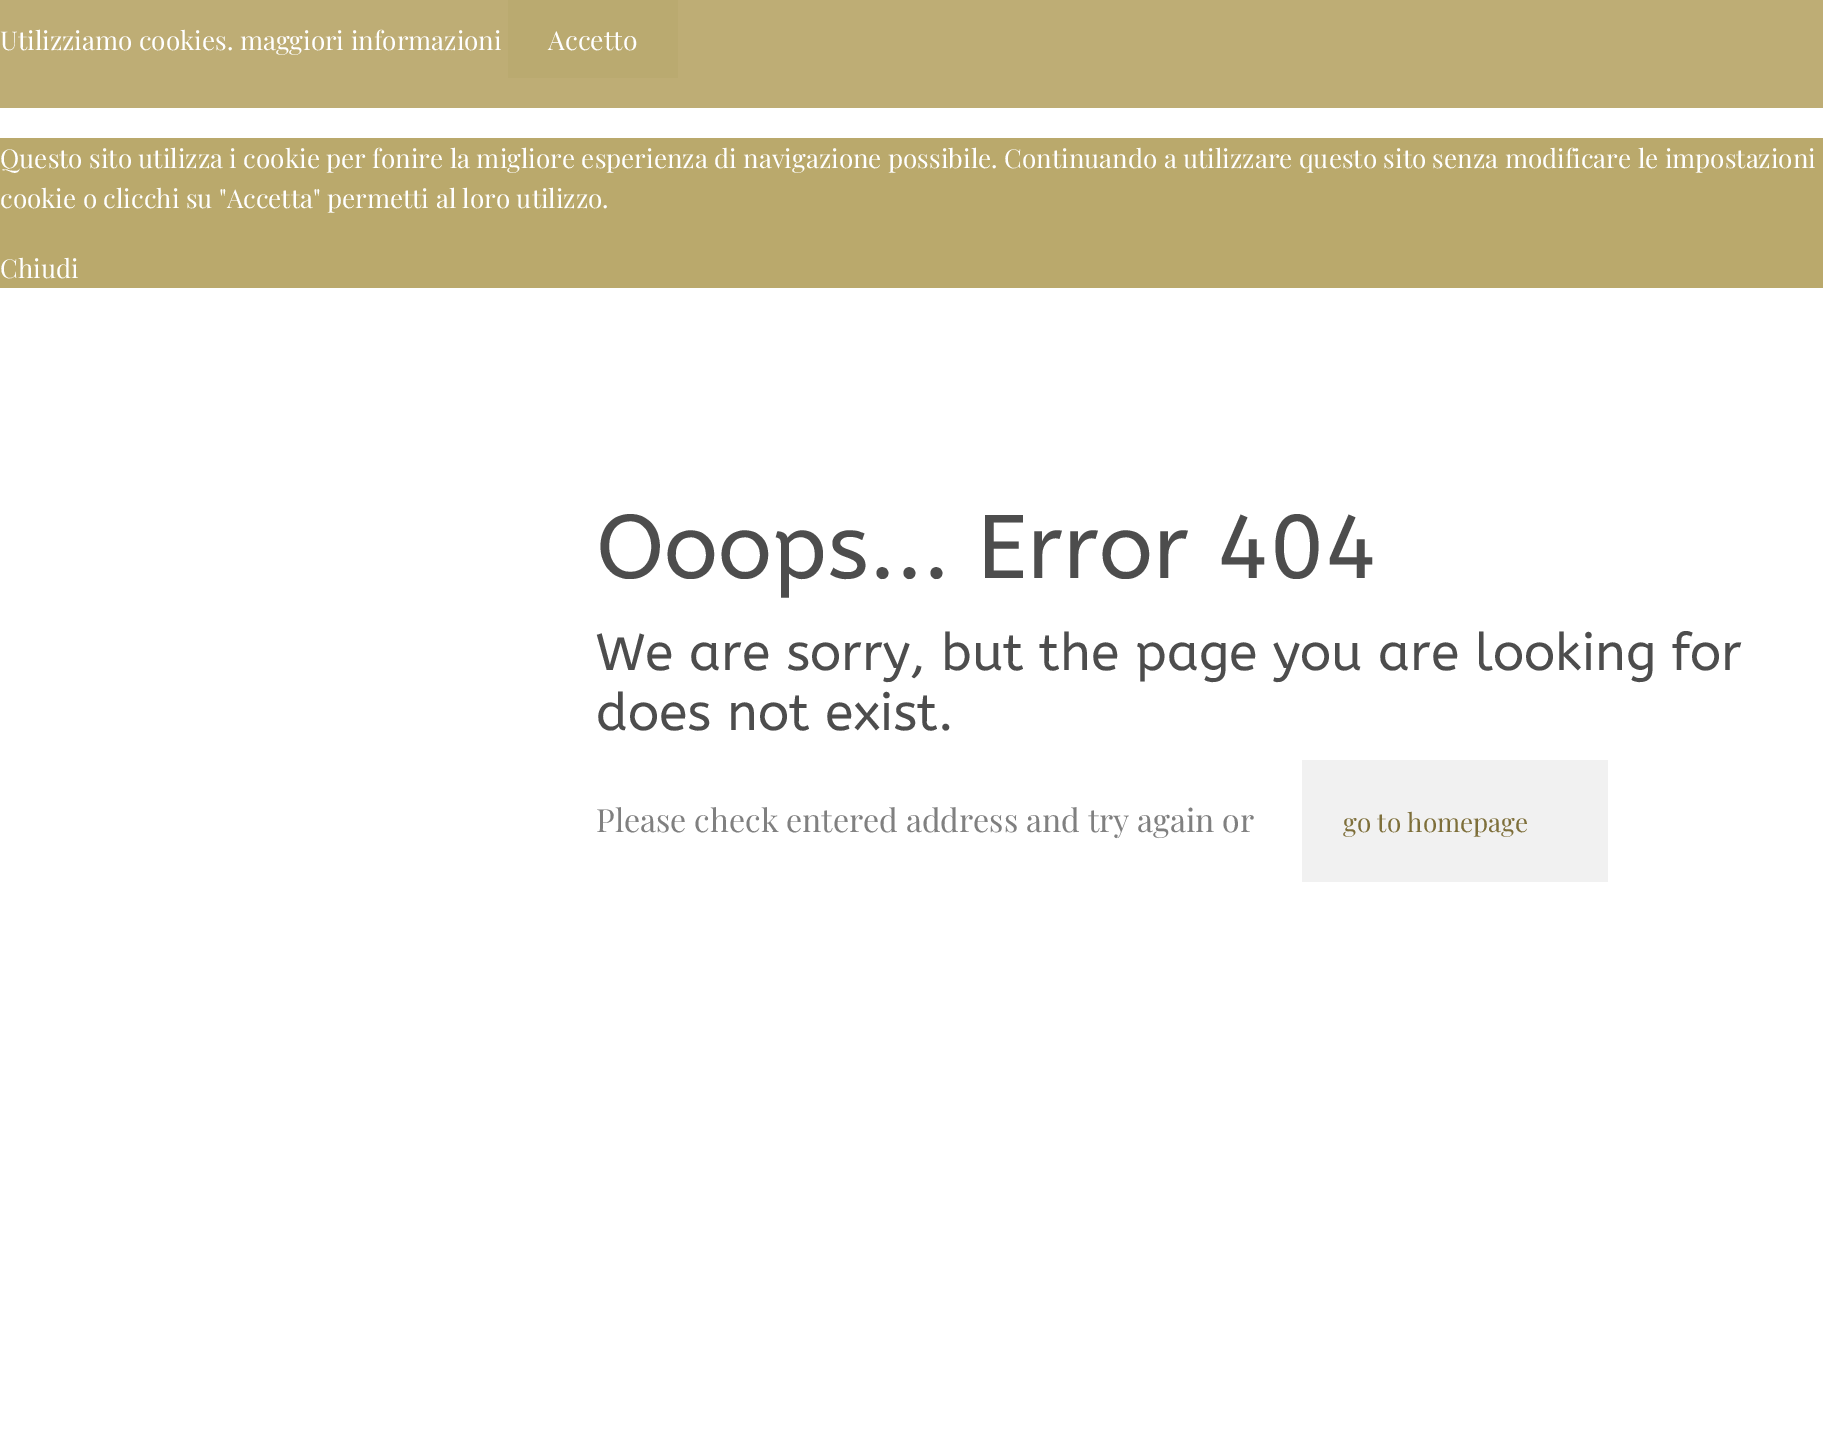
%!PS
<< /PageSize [1823 1447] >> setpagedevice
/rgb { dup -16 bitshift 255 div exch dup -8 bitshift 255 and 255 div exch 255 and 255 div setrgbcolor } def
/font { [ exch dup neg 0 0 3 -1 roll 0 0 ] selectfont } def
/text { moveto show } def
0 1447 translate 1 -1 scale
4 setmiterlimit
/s1 { /PlayfairDisplay-Regular 26 font 16#FFFFFF rgb } def
/s2 { /PlayfairDisplay-Regular 26.5 font 16#FFFFFF rgb } def
/s3 { /ABeeZee-Regular 90 font 16#4D4D4D rgb } def
/s4 { /ABeeZee-Regular 52 font 16#4D4D4D rgb } def
/s5 { /PlayfairDisplay-Regular 32 font 16#808080 rgb } def
/s6 { /PlayfairDisplay-Regular 26 font 16#7E6F3A rgb } def
16#FFFFFF rgb
0 0 1823 1447 rectfill
16#BEAD75 rgb
0 0 1823 108 rectfill
s1
(Utilizziamo cookies. maggiori informazioni) 0 50 text
16#BAAA70 rgb
508 0 170 78 rectfill
s2
(Accetto) 548 50 text
16#BAA96C rgb
0 138 1823 150 rectfill
s1
(Questo sito utilizza i cookie per fonire la migliore esperienza di navigazione possibile. Continuando a utilizzare questo sito senza modificare le impostazioni) 0 168 text
(cookie o clicchi su "Accetta" permetti al loro utilizzo.) 0 208 text
(Chiudi) 0 278 text
s3
(Ooops... Error 404) 596 578 text
s4
(We are sorry, but the page you are looking for) 596 670 text
(does not exist.) 596 730 text
s5
(Please check entered address and try again or) 596 832 text
16#F1F1F1 rgb
1302 760 306 122 rectfill
s6
(go to homepage) 1343 832 text
showpage
